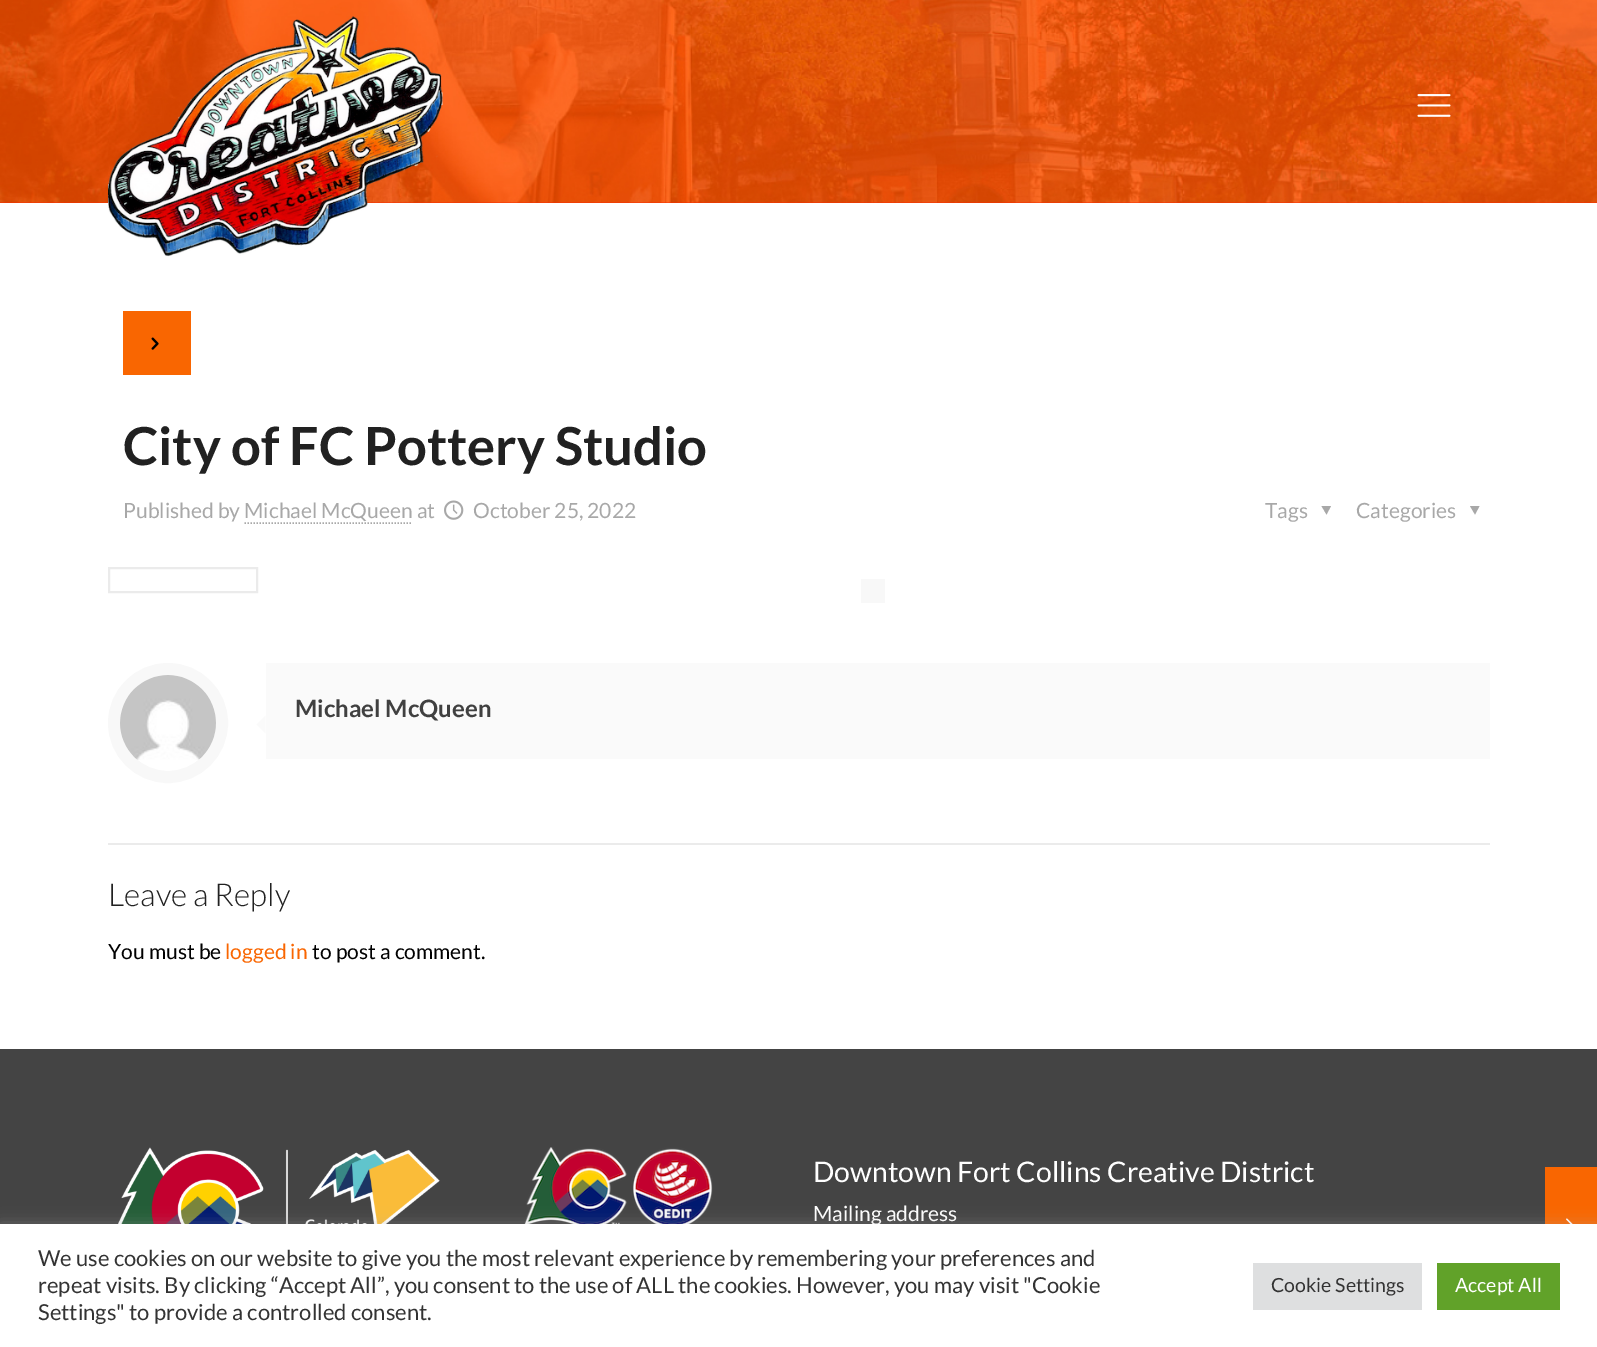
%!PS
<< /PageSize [1597 1347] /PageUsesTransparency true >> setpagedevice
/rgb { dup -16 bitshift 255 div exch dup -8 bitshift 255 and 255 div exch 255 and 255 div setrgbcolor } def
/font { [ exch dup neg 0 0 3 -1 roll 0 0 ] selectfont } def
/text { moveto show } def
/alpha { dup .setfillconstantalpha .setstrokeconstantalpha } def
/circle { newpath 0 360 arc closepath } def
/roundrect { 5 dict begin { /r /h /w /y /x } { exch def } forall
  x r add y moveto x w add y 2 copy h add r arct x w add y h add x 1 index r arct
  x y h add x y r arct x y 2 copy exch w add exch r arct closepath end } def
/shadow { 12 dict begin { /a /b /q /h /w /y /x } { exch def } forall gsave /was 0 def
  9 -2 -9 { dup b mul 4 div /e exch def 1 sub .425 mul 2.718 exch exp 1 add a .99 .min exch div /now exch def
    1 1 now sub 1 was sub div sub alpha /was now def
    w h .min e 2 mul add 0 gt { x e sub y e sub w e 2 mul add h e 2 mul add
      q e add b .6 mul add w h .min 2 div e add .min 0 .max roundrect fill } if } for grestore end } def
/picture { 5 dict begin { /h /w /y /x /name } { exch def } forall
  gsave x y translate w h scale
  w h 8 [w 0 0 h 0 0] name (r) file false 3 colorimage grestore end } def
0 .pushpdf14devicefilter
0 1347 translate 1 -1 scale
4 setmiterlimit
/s1 { /Lato-Bold 52.5 font 16#212121 rgb } def
/s2 { /Lato-Regular 21 font 16#A8A8A8 rgb } def
/s3 { /Lato-Bold 24 font 16#404040 rgb } def
/s4 { /Lato-Light 31.5 font 16#212121 rgb } def
/s5 { /Lato-Regular 21 font 16#000000 rgb } def
/s6 { /Lato-Regular 21 font 16#F96601 rgb } def
/s7 { /Lato-Regular 28.4 font 16#FFFFFF rgb } def
/s8 { /Lato-Regular 21 font 16#FFFFFF rgb } def
/s9 { /Lato-Regular 22 font 16#333333 rgb } def
/s10 { /Lato-Regular 19.5 font 16#333333 rgb } def
/s11 { /Lato-Regular 19.5 font 16#FFFFFF rgb } def
16#FFFFFF rgb
0 0 1597 1347 rectfill
16#F93001 rgb
0 202 1597 1 rectfill
(pic1.raw) 0 0 1597 203 picture
(pic2.raw) 108 16 335 241 picture
(pic3.raw) 1417 94 34 23 picture
16#F96601 rgb
123 311 68 64 rectfill
(pic4.raw) 151 337 8 13 picture
s1
(City of FC Pottery Studio) 123 465 text
s2
(Published by Michael McQueen at) 123 518 text
1.5 setlinewidth
[1.5 1.5] 0 setdash
244.5 523 moveto 412.5 523 lineto stroke
(pic5.raw) 444 500 20 20 picture
(October 25, 2022) 473 518 text
(Tags) 1265 518 text
1331 506 moveto 1326.5 514.5 lineto 1321.5 506 lineto closepath fill
(Categories) 1356 518 text
1479.5 506 moveto 1475 514.5 lineto 1470 506 lineto closepath fill
16#EBEBEB rgb
2 setlinewidth
[] 0 setdash
109 568 148 24 rectstroke
16#F8F8F8 rgb
861 579 24 24 rectfill
12 setlinewidth
168 723 54 circle stroke
(pic6.raw) 120 675 96 85 picture
16#FAFAFA rgb
266 663 1224 96 rectfill
s3
(Michael McQueen) 295 717 text
16#FAFAFA rgb
265.5 715.5 moveto 265.5 733.5 lineto 256.5 724.5 lineto closepath fill
16#EBEBEB rgb
108 843 1382 2 rectfill
s4
(Leave a Reply) 108 906 text
s5
(You must be) 108 959 text
s6
(logged in) 225 959 text
s5
(to post a comment.) 312 959 text
16#444444 rgb
0 1049 1597 175 rectfill
(pic7.raw) 118 1147 322 77 picture
(pic8.raw) 524 1147 189 77 picture
s7
(Downtown Fort Collins Creative District) 813 1182 text
s8
(Mailing address) 813 1221 text
16#F96601 rgb
1545 1167 52 57 rectfill
(pic9.raw) 1566 1218 7 6 picture
16#ACABAB rgb
0 1223 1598 123 0 7.5 0.3 shadow
16#FFFFFF rgb
0 1224 1597 123 rectfill
s9
(We use cookies on our website to give you the most relevant experience by remembering your preferences and) 38 1266 text
(repeat visits. By clicking “Accept All”, you consent to the use of ALL the cookies. However, you may visit "Cookie) 38 1293 text
(Settings" to provide a controlled consent.) 38 1320 text
16#DEDFE0 rgb
1253 1263 169 47 rectfill
s10
(Cookie Settings) 1271 1292 text
16#61A229 rgb
1437 1263 123 47 rectfill
s11
(Accept All) 1455 1292 text
.poppdf14devicefilter showpage
